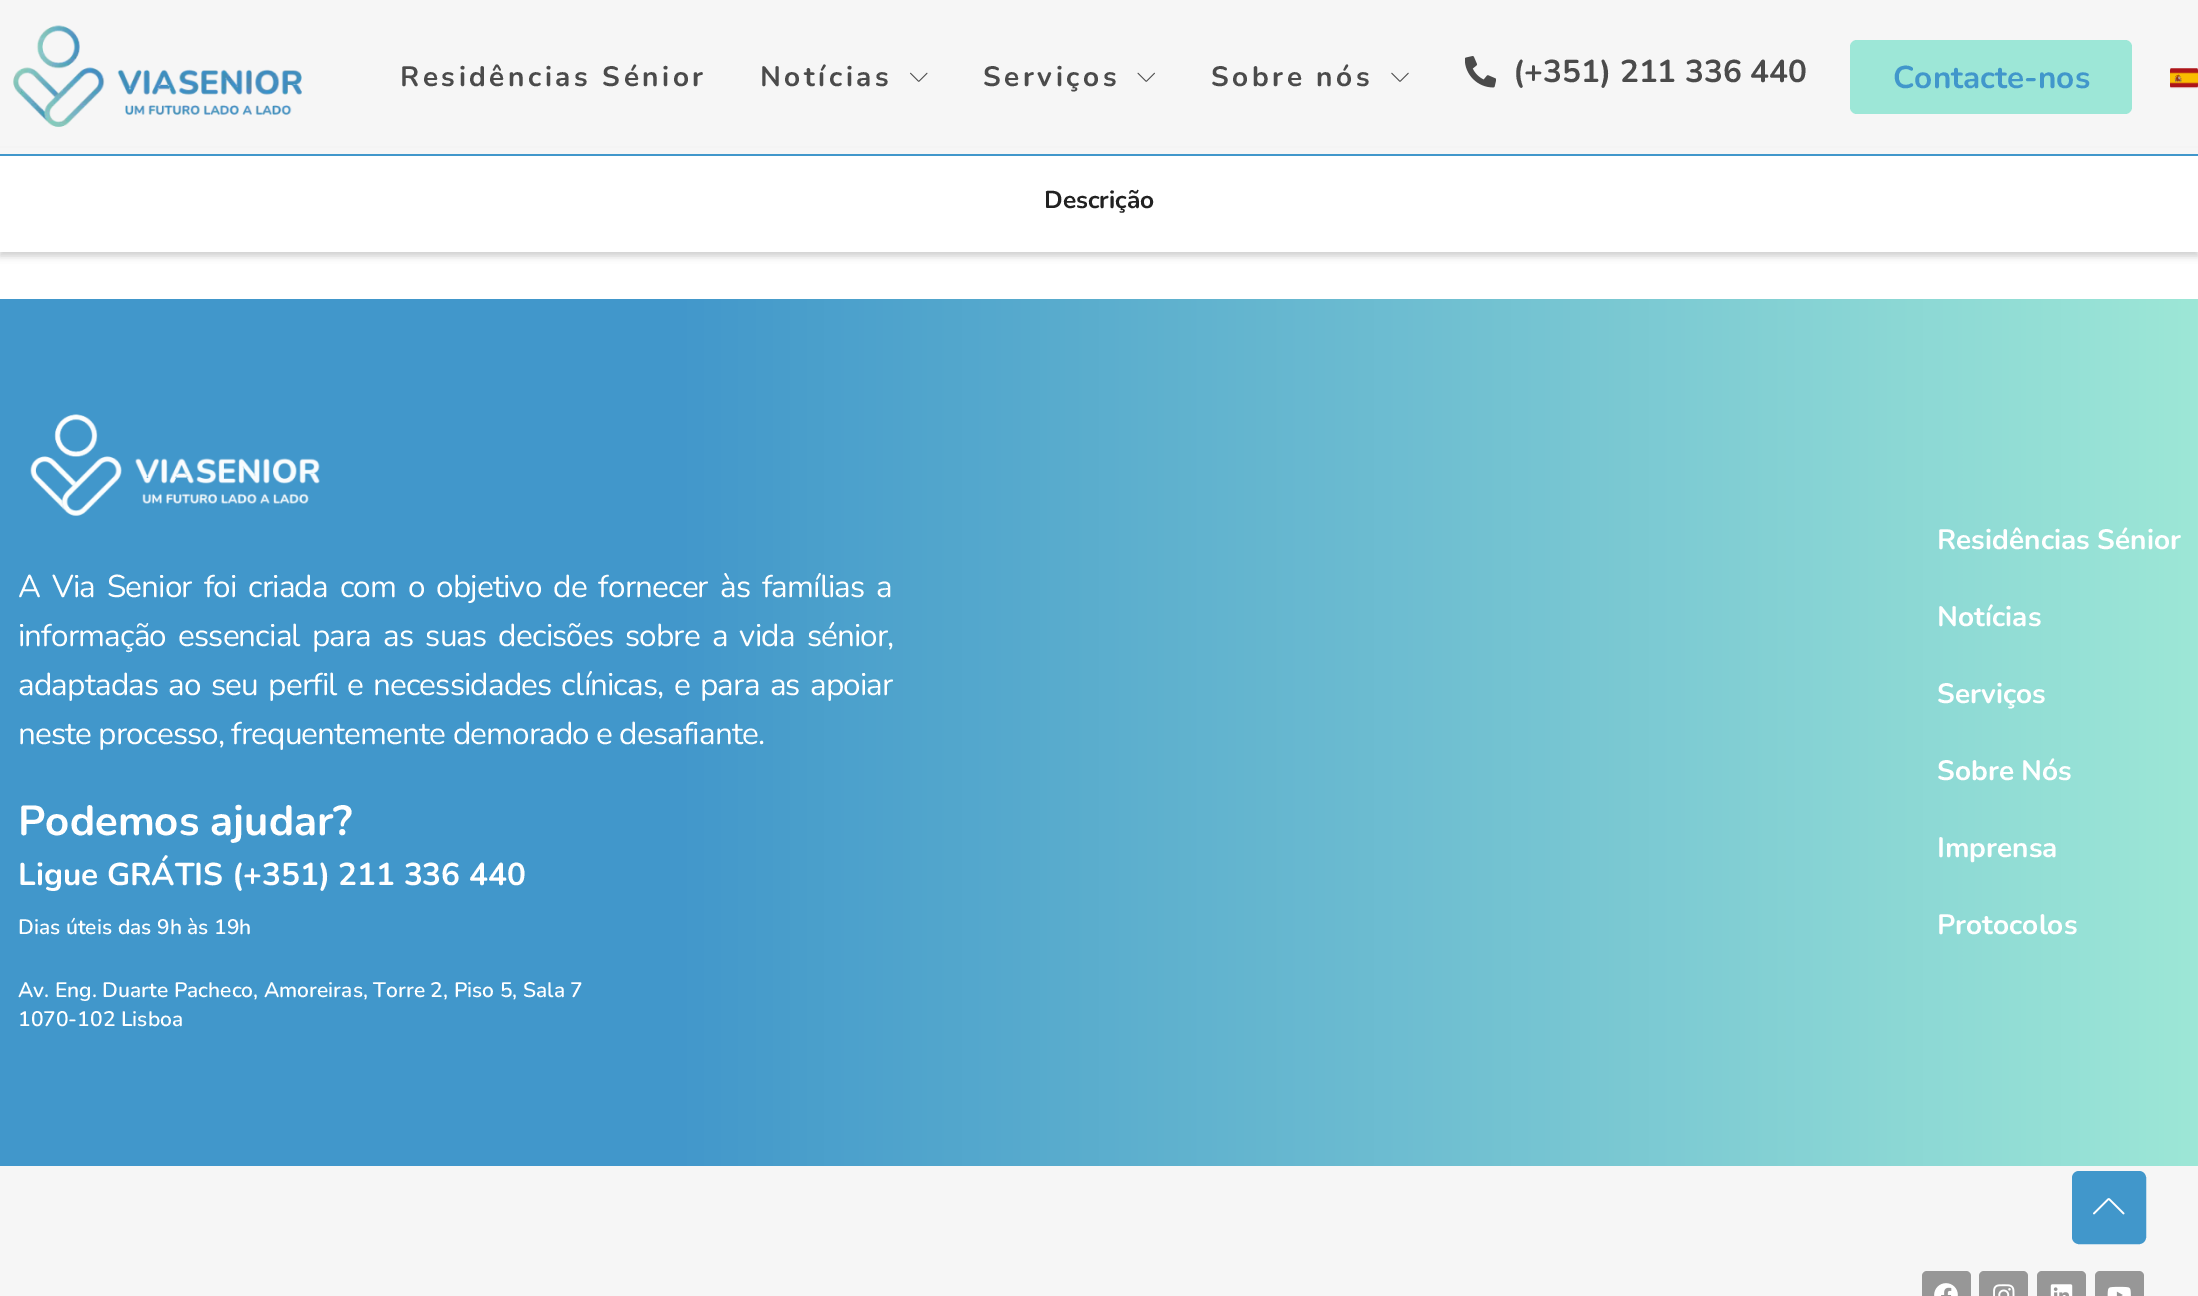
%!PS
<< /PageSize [2198 1296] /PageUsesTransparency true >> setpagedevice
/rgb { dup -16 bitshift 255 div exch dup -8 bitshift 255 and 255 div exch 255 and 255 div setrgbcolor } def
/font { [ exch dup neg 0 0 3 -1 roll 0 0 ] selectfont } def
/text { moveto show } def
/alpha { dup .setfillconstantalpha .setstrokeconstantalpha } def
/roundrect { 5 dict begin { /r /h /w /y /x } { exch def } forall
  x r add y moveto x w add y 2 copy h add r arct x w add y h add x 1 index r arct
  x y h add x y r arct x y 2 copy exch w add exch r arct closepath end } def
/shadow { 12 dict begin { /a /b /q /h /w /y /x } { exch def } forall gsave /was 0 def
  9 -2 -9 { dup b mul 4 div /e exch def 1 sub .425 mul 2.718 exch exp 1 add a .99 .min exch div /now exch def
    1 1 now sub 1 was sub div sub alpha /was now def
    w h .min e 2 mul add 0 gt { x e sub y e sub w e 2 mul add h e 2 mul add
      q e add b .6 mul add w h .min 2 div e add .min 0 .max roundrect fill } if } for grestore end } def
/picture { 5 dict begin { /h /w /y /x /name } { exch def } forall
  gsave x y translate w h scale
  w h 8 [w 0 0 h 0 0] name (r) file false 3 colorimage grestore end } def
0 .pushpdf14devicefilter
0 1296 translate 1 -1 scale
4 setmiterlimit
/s1 { /Nunito-Bold 31.5 font 16#4B4B4B rgb } def
/s2 { /Nunito-Bold 31.5 font 16#4197CB rgb } def
/s3 { /Nunito-Bold 24.5 font 16#222222 rgb } def
/s4 { /Nunito-Bold 42 font 16#FFFFFF rgb } def
/s5 { /Nunito-Bold 31.5 font 16#FFFFFF rgb } def
/s6 { /Nunito-SemiBold 21 font 16#FFFFFF rgb } def
/s7 { /Nunito-Bold 28 font 16#FFFFFF rgb } def
16#F6F6F6 rgb
0 0 2198 1296 rectfill
16#FFFFFF rgb
0 252 2198 47 rectfill
16#000000 rgb
0 154 2198 102 0 3.5 0.1 shadow
0 154 2198 102 0 3.5 0.1 shadow
16#F6F6F6 rgb
0 148 2198 6 rectfill
16#4197CB rgb
0 154 2198 2 rectfill
(pic1.raw) 13 25 289 102 picture
/Nunito-Bold 28 font
16#4B4B4B rgb
400 86 moveto 3.5 0 (Residências Sénior) ashow
760 86 moveto 3.5 0 (Notícias) ashow
(pic2.raw) 910 72 18 10 picture
983 86 moveto 3.5 0 (Serviços) ashow
(pic3.raw) 1137 72 18 10 picture
1211 86 moveto 3.5 0 (Sobre nós) ashow
(pic4.raw) 1391 72 18 10 picture
(pic5.raw) 1465 56 31 32 picture
s1
(\(+351\) 211 336 440) 1513 82 text
16#9DE7D7 rgb
1850 40 282 74 7 roundrect fill
s2
(Contacte-nos) 1893 88 text
(pic6.raw) 2170 68 28 21 picture
16#FFFFFF rgb
0 156 2198 96 rectfill
s3
(Descrição) 1044 208 text
gsave 0 299 moveto 2198 299 lineto 2198 1166 lineto 0 1166 lineto closepath clip newpath
<< /ShadingType 2 /ColorSpace /DeviceRGB /Coords [0 732 2198 732] /Extend [true true] /Function << /FunctionType 3 /Domain [0 1] /Functions [<< /FunctionType 2 /Domain [0 1] /C0 [0.255 0.592 0.796] /C1 [0.255 0.592 0.796] /N 1 >> << /FunctionType 2 /Domain [0 1] /C0 [0.255 0.592 0.796] /C1 [0.616 0.906 0.843] /N 1 >>] /Bounds [0.3] /Encode [0 1 0 1] >> >> shfill grestore
(pic7.raw) 30 414 290 102 picture
/Nunito-Regular 31.5 font
16#FFFFFF rgb
18 597 moveto 4.6 0 32 -0.88 0 (A Via Senior foi criada com o objetivo de fornecer às famílias a) awidthshow
18 646 moveto 4.75 0 32 -0.88 0 (informação essencial para as suas decisões sobre a vida sénior,) awidthshow
18 695 moveto 3 0 32 -0.88 0 (adaptadas ao seu perfil e necessidades clínicas, e para as apoiar) awidthshow
18 744 moveto -0.88 0 (neste processo, frequentemente demorado e desafiante.) ashow
s4
(Podemos ajudar?) 18 835 text
s5
(Ligue GRÁTIS \(+351\) 211 336 440) 18 885 text
s6
(Dias úteis das 9h às 19h) 18 934 text
(Av. Eng. Duarte Pacheco, Amoreiras, Torre 2, Piso 5, Sala 7) 18 997 text
(1070-102 Lisboa) 18 1026 text
s7
(Residências Sénior) 1937 549 text
(Notícias) 1937 626 text
(Serviços) 1937 703 text
(Sobre Nós) 1937 780 text
(Imprensa) 1937 857 text
(Protocolos) 1937 934 text
16#979797 rgb
1922 1271 49 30 5 roundrect fill
(pic8.raw) 1934 1283 24 13 picture
1979 1271 49 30 5 roundrect fill
(pic9.raw) 1993 1284 22 12 picture
2037 1271 49 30 5 roundrect fill
(pic10.raw) 2050 1284 23 12 picture
2095 1271 49 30 5 roundrect fill
(pic11.raw) 2107 1286 24 10 picture
16#4197CB rgb
2073 1172 72 71 6 roundrect gsave fill grestore
2 setlinewidth
stroke
(pic12.raw) 2093 1198 32 17 picture
.poppdf14devicefilter showpage
